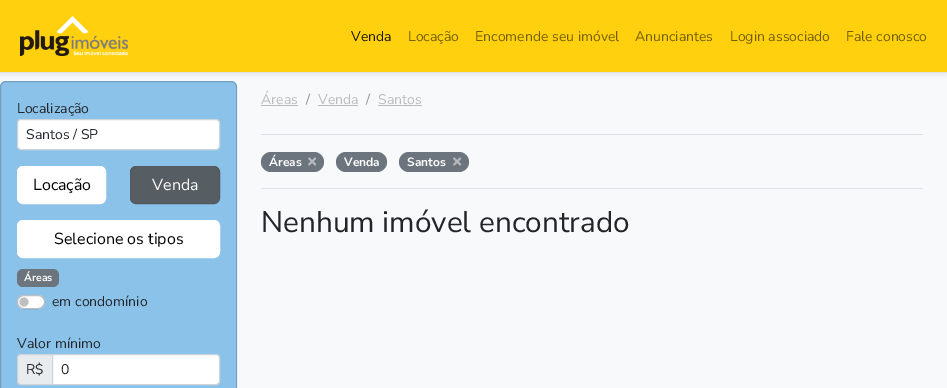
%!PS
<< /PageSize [947 388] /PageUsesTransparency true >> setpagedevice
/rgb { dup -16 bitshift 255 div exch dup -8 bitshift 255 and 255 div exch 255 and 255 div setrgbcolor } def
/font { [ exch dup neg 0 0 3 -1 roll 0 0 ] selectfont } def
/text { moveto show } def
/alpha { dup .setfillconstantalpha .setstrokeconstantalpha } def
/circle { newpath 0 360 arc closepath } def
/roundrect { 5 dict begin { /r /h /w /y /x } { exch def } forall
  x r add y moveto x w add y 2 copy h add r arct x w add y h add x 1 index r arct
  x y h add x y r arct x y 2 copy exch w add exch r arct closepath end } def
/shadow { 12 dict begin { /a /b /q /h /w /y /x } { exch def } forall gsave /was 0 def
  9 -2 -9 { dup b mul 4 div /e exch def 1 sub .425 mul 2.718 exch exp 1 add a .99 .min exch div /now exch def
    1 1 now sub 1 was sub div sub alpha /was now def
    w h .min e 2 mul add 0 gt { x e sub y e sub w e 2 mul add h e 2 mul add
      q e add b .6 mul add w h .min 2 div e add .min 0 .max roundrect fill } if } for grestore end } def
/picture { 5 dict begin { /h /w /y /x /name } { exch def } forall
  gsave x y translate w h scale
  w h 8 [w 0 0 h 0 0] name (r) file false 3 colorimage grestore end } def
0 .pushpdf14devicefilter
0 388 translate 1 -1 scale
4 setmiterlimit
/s1 { /NunitoSans-Regular 14 font 16#1A1501 rgb } def
/s2 { /NunitoSans-Regular 14 font 16#735E06 rgb } def
/s3 { /NunitoSans-Regular 14 font 16#212529 rgb } def
/s4 { /NunitoSans-Regular 16 font 16#000000 rgb } def
/s5 { /NunitoSans-Regular 16 font 16#FFFFFF rgb } def
/s6 { /NunitoSans-Bold 10.5 font 16#FFFFFF rgb } def
/s7 { /NunitoSans-Regular 14 font 16#BABBBB rgb } def
/s8 { /NunitoSans-Regular 14 font 16#888F96 rgb } def
/s9 { /NunitoSans-Bold 12 font 16#FFFFFF rgb } def
/s10 { /NunitoSans-Regular 29.75 font 16#212529 rgb } def
16#F8F9FA rgb
0 0 947 388 rectfill
16#8BC2E9 rgb
0 81 237 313 6 roundrect fill
0.18 alpha
16#000000 rgb
0.5 81.5 236 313 5.5 roundrect stroke
1 alpha
0 2 947 73 0 2 0.07 shadow
16#FFD00D rgb
0 0 947 72 rectfill
16#DEE2E6 rgb
0 72 947 1 rectfill
(pic1.raw) 20 16 108 40 picture
s1
(Venda) 351 41 text
s2
(Locação) 408 41 text
(Encomende seu imóvel) 475 41 text
(Anunciantes) 635 41 text
(Login associado) 730 41 text
(Fale conosco) 846 41 text
s3
(Localização) 17 113 text
16#FFFFFF rgb
17.5 119.5 202 30 3.5 roundrect gsave fill grestore
16#CED4DA rgb
stroke
s3
(Santos / SP) 26 139 text
16#FFFFFF rgb
17.5 166.5 88 37 5.5 roundrect gsave fill grestore
stroke
s4
(Locação) 33 190 text
16#565E64 rgb
130.5 166.5 89 37 5.5 roundrect gsave fill grestore
16#51585E rgb
stroke
s5
(Venda) 152 190 text
17.5 220.5 202 37 5.5 roundrect gsave fill grestore
stroke
s4
(Selecione os tipos) 54 244 text
16#6C757D rgb
17 269 42 18 6 roundrect fill
s6
(Áreas) 24 281 text
17 295 28 14 7 roundrect fill
16#BFBFBF rgb
24 302 4.5 circle fill
0.25 alpha
16#000000 rgb
17.5 295.5 27 13 6.5 roundrect stroke
1 alpha
s3
(em condomínio) 52 306 text
(Valor mínimo) 17 348 text
16#E9ECEF rgb
21 354.5 moveto 52.5 354.5 lineto 52.5 384.5 lineto 21 384.5 lineto 19 384.5 17.5 383 17.5 381 curveto 17.5 358 lineto 17.5 356 19 354.5 21 354.5 curveto closepath gsave fill grestore
16#CED4DA rgb
stroke
s3
(R$) 26 374 text
16#FFFFFF rgb
52.5 354.5 moveto 216 354.5 lineto 218 354.5 219.5 356 219.5 358 curveto 219.5 381 lineto 219.5 383 218 384.5 216 384.5 curveto 52.5 384.5 lineto closepath gsave fill grestore
16#CED4DA rgb
stroke
s3
(0) 61 374 text
16#DEE2E6 rgb
261 134 662 1 rectfill
s7
(Áreas) 261 104 text
261 105 37 1 rectfill
s8
(/) 306 104 text
s7
(Venda) 318 104 text
318 105 40 1 rectfill
s8
(/) 366 104 text
s7
(Santos) 378 104 text
378 105 44 1 rectfill
16#DEE2E6 rgb
261 188 662 1 rectfill
16#6C757D rgb
261 152 63 20 10 roundrect fill
s9
(Áreas) 269 166 text
(pic2.raw) 308 157 9 9 picture
16#6C757D rgb
336 152 51 20 10 roundrect fill
s9
(Venda) 344 166 text
16#6C757D rgb
399 152 70 20 10 roundrect fill
s9
(Santos) 407 166 text
(pic2.raw) 453 157 9 9 picture
s10
(Nenhum imóvel encontrado) 261 232 text
.poppdf14devicefilter showpage
